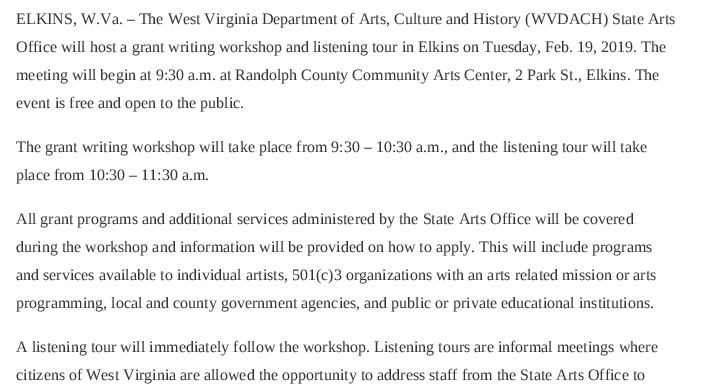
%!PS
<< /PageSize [702 389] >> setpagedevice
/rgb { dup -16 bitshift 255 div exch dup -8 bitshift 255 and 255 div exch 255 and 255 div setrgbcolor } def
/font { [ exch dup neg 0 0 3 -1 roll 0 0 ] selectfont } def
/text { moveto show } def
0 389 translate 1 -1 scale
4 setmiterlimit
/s1 { /LiberationSerif-Regular 16 font 16#353535 rgb } def
16#FFFFFF rgb
0 0 702 389 rectfill
s1
(ELKINS, W.Va. – The West Virginia Department of Arts, Culture and History \(WVDACH\) State Arts) 16 24 text
(Office will host a grant writing workshop and listening tour in Elkins on Tuesday, Feb. 19, 2019. The) 16 52 text
(meeting will begin at 9:30 a.m. at Randolph County Community Arts Center, 2 Park St., Elkins. The) 16 80 text
(event is free and open to the public.) 16 108 text
(The grant writing workshop will take place from 9:30 – 10:30 a.m., and the listening tour will take) 16 152 text
(place from 10:30 – 11:30 a.m.) 16 180 text
(All grant programs and additional services administered by the State Arts Office will be covered) 16 224 text
(during the workshop and information will be provided on how to apply. This will include programs) 16 252 text
(and services available to individual artists, 501\(c\)3 organizations with an arts related mission or arts) 16 280 text
(programming, local and county government agencies, and public or private educational institutions.) 16 308 text
(A listening tour will immediately follow the workshop. Listening tours are informal meetings where) 16 352 text
(citizens of West Virginia are allowed the opportunity to address staff from the State Arts Office to) 16 380 text
showpage
